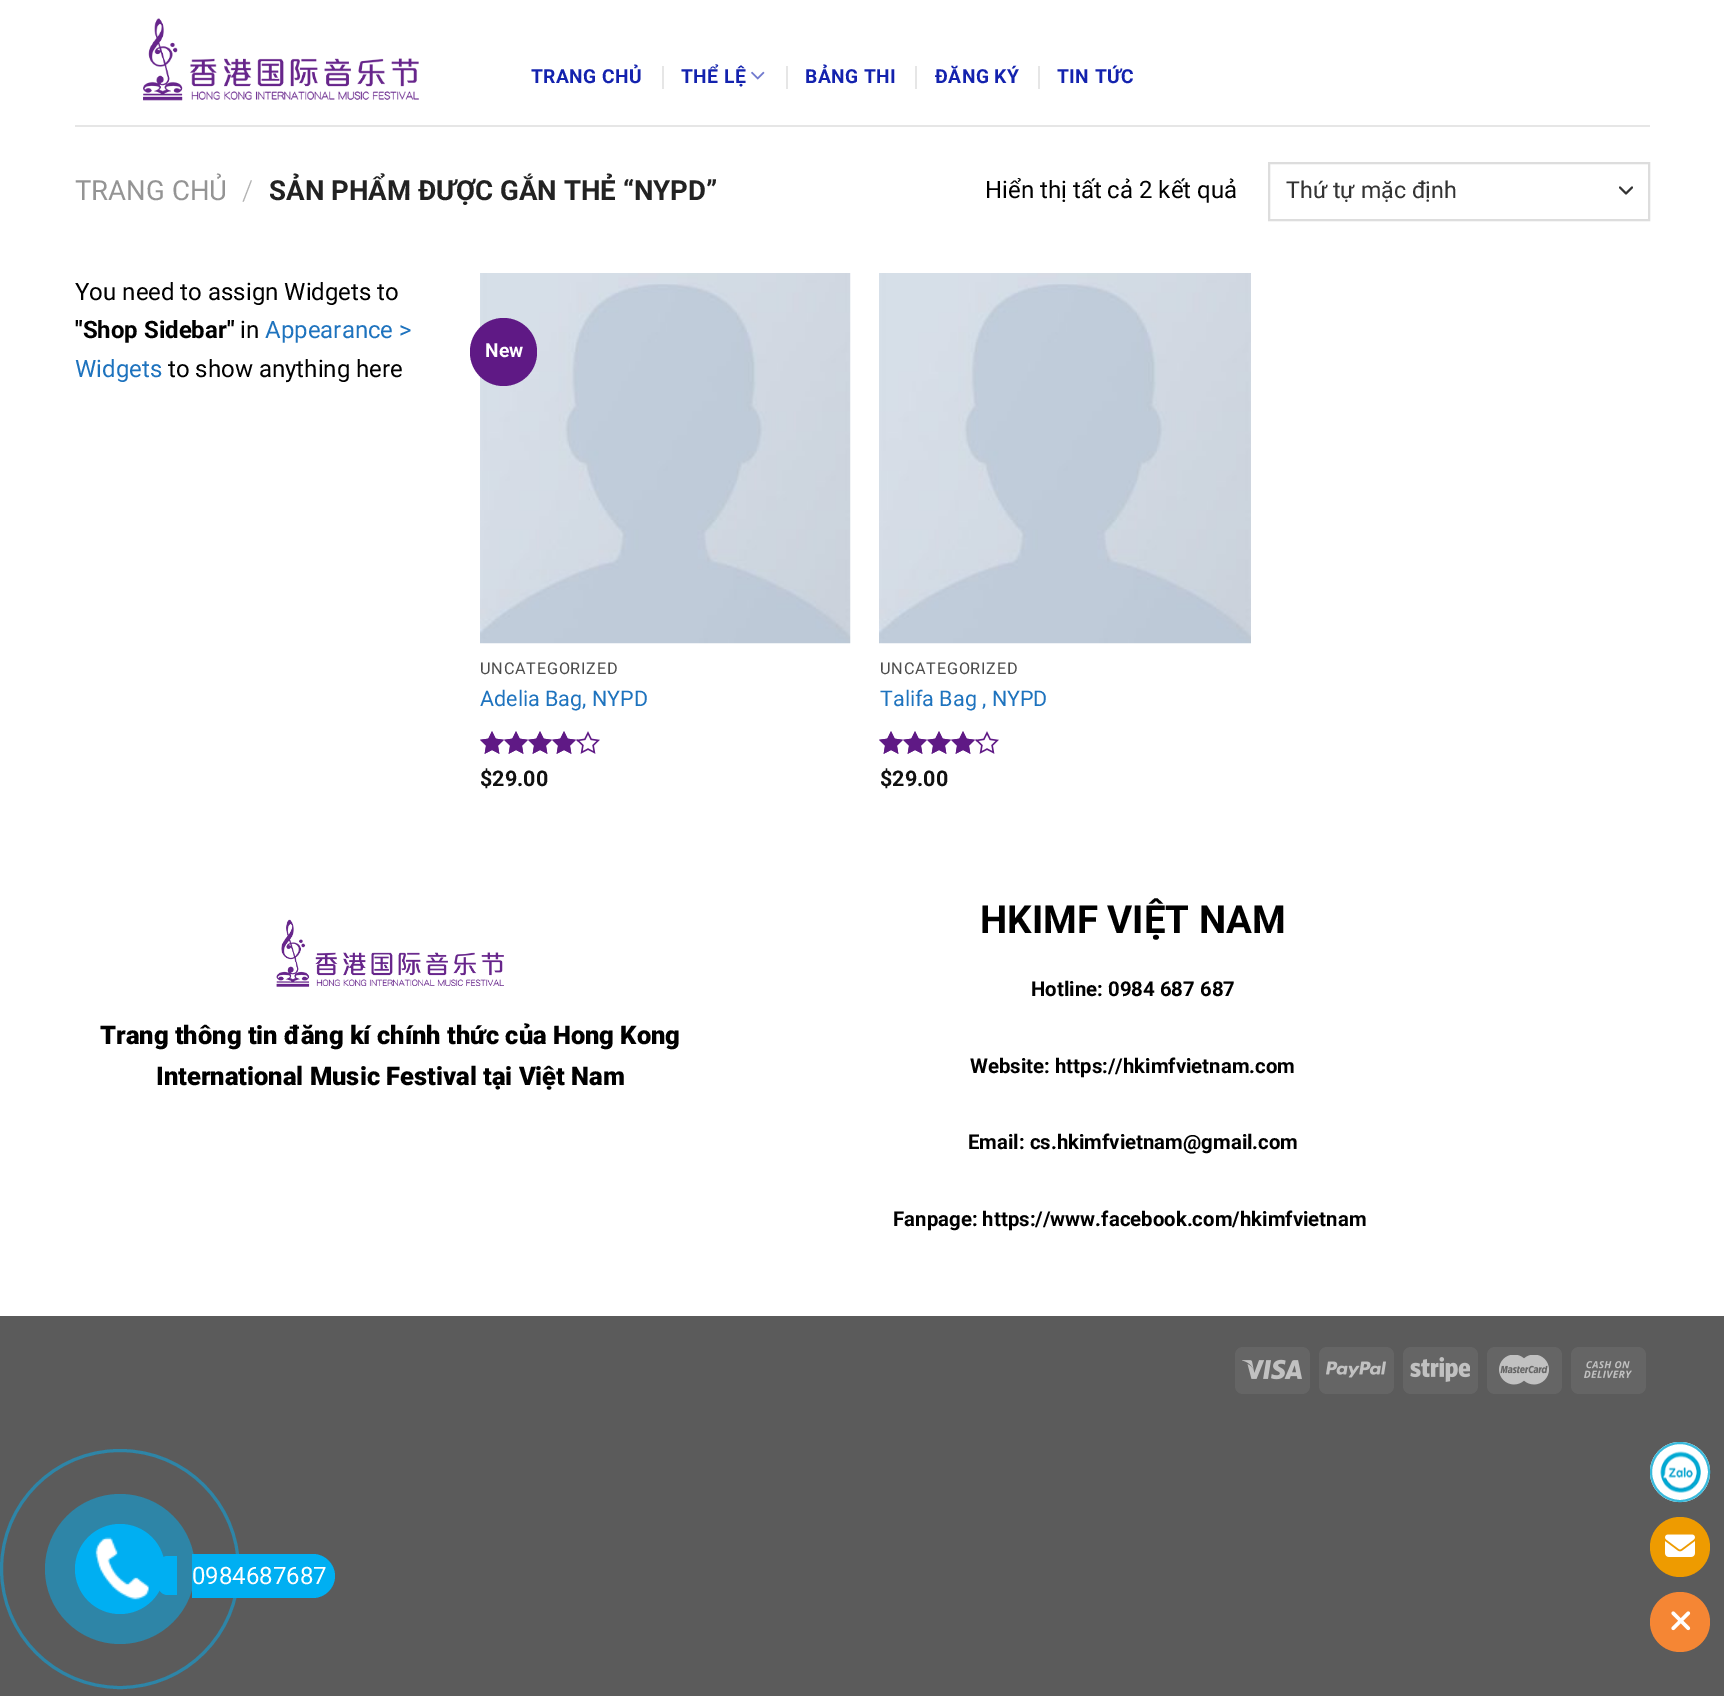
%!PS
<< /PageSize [1724 1696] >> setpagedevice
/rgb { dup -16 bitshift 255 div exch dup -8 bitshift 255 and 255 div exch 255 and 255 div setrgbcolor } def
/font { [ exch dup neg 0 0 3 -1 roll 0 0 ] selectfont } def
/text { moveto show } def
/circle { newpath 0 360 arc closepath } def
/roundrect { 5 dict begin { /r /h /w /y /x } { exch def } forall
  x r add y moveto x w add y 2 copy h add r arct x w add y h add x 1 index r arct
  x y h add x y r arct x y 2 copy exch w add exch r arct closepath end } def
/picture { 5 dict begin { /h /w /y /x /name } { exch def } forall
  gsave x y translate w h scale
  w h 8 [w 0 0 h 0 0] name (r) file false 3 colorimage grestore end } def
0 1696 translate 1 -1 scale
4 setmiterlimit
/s1 { /Roboto-Regular 27.6 font 16#949494 rgb } def
/s2 { /Roboto-Light 27.6 font 16#B2B2B2 rgb } def
/s3 { /Roboto-Bold 27.6 font 16#222222 rgb } def
/s4 { /Roboto-Regular 24 font 16#000000 rgb } def
/s5 { /Roboto-Regular 23.25 font 16#333333 rgb } def
/s6 { /Roboto-Bold 24 font 16#000000 rgb } def
/s7 { /Roboto-Regular 24 font 16#1E73BE rgb } def
/s8 { /Roboto-Bold 19.25 font 16#FFFFFF rgb } def
/s9 { /Roboto-Regular 21.5 font 16#1E73BE rgb } def
/s10 { /Roboto-Bold 21.5 font 16#111111 rgb } def
/s11 { /Roboto-Black 25.5 font 16#000000 rgb } def
/s12 { /Roboto-Bold 38.5 font 16#000000 rgb } def
/s13 { /Roboto-Bold 20.4 font 16#000000 rgb } def
/s14 { /Roboto-Regular 24 font 16#FFFFFF rgb } def
16#5B5B5B rgb
0 0 1724 1696 rectfill
16#FFFFFF rgb
0 0 1724 1316 rectfill
(pic1.raw) 143 18 276 83 picture
/Roboto-Bold 19.25 font
16#1322AE rgb
531 83 moveto 0.4 0 (TRANG CHỦ) ashow
16#E6E6E6 rgb
662 66 2 23 rectfill
16#1322AE rgb
681 83 moveto 0.4 0 (THỂ LỆ) ashow
(pic2.raw) 751 71 14 9 picture
16#E6E6E6 rgb
786 66 2 23 rectfill
16#1322AE rgb
805 83 moveto 0.4 0 (BẢNG THI) ashow
16#E6E6E6 rgb
915 66 2 23 rectfill
16#1322AE rgb
935 83 moveto 0.4 0 (ĐĂNG KÝ) ashow
16#E6E6E6 rgb
1038 66 2 23 rectfill
16#1322AE rgb
1057 83 moveto 0.4 0 (TIN TỨC) ashow
16#E6E6E6 rgb
75 125 1575 2 rectfill
s1
(TRANG CHỦ) 75 200 text
s2
(/) 242 200 text
s3
(SẢN PHẨM ĐƯỢC GẮN THẺ “NYPD”) 269 200 text
s4
(Hiển thị tất cả 2 kết quả) 985 198 text
16#333333 rgb
2 setlinewidth
1 setlinecap
1 setlinejoin
1620 187.5 moveto 1626 193.5 lineto 1632 187.5 lineto stroke
16#DDDDDD rgb
0 setlinecap
0 setlinejoin
1269 163 380 57 rectstroke
s5
(Thứ tự mặc định) 1286 198 text
s4
(You need to assign Widgets to) 75 300 text
s6
("Shop Sidebar") 75 338 text
s4
(in) 240 338 text
s7
(Appearance >) 265 338 text
(Widgets) 75 377 text
s4
(to show anything here) 168 377 text
(pic3.raw) 480 273 371 371 picture
16#5F1985 rgb
470 318 67 68 33.5 roundrect fill
s8
(New) 485 357 text
/Roboto-Regular 16.25 font
16#4D4D4D rgb
480 674 moveto 0.75 0 (UNCATEGORIZED) ashow
s9
(Adelia Bag, NYPD) 480 706 text
(pic4.raw) 480 731 120 23 picture
(pic5.raw) 480 731 98 23 picture
s10
($29.00) 480 786 text
(pic6.raw) 879 273 372 371 picture
/Roboto-Regular 16.25 font
16#4D4D4D rgb
880 674 moveto 0.75 0 (UNCATEGORIZED) ashow
s9
(Talifa Bag , NYPD) 880 706 text
(pic4.raw) 879 731 120 23 picture
(pic5.raw) 879 731 98 23 picture
s10
($29.00) 880 786 text
(pic7.raw) 276 919 228 68 picture
s11
(Trang thông tin đăng kí chính thức của Hong Kong) 100 1044 text
(International Music Festival tại Việt Nam) 156 1085 text
s12
(HKIMF VIỆT NAM) 980 933 text
s13
(Hotline: 0984 687 687) 1031 996 text
(Website: https://hkimfvietnam.com) 970 1073 text
(Email: cs.hkimfvietnam@gmail.com) 968 1149 text
(Fanpage: https://www.facebook.com/hkimfvietnam) 893 1226 text
16#656565 rgb
1235 1347 75 47 8 roundrect fill
(pic8.raw) 1242 1359 60 21 picture
1319 1347 75 47 8 roundrect fill
(pic9.raw) 1326 1361 60 17 picture
1403 1347 75 47 8 roundrect fill
(pic10.raw) 1410 1357 60 25 picture
1487 1347 75 47 8 roundrect fill
(pic11.raw) 1499 1355 50 30 picture
1571 1347 75 47 8 roundrect fill
(pic12.raw) 1584 1361 48 17 picture
16#2E85A7 rgb
3 setlinewidth
120 1569 118.5 circle stroke
120 1569 75 circle fill
16#00AFF2 rgb
120 1569 45 circle fill
(pic13.raw) 95 1537 54 63 picture
192 1554 moveto 313 1554 lineto 325 1554 335 1564 335 1576 curveto 335 1588 325 1598 313 1598 curveto 192 1598 lineto closepath fill
s14
(0984687687) 192 1584 text
16#00AFF2 rgb
167.5 1556 moveto 177 1556 lineto 177 1595 lineto 167.5 1595 lineto 162.5 1595 158 1590.5 158 1585.5 curveto 158 1565.5 lineto 158 1560.5 162.5 1556 167.5 1556 curveto closepath fill
16#FFFFFF rgb
1680 1472 30 circle fill
(pic14.raw) 1660 1451 41 42 picture
16#38B9DB rgb
2 setlinewidth
1680 1472 29 circle stroke
16#EE9B00 rgb
1680 1547 30 circle fill
(pic15.raw) 1665 1534 30 23 picture
16#F58634 rgb
1680 1622 30 circle fill
(pic16.raw) 1671 1611 20 20 picture
showpage
